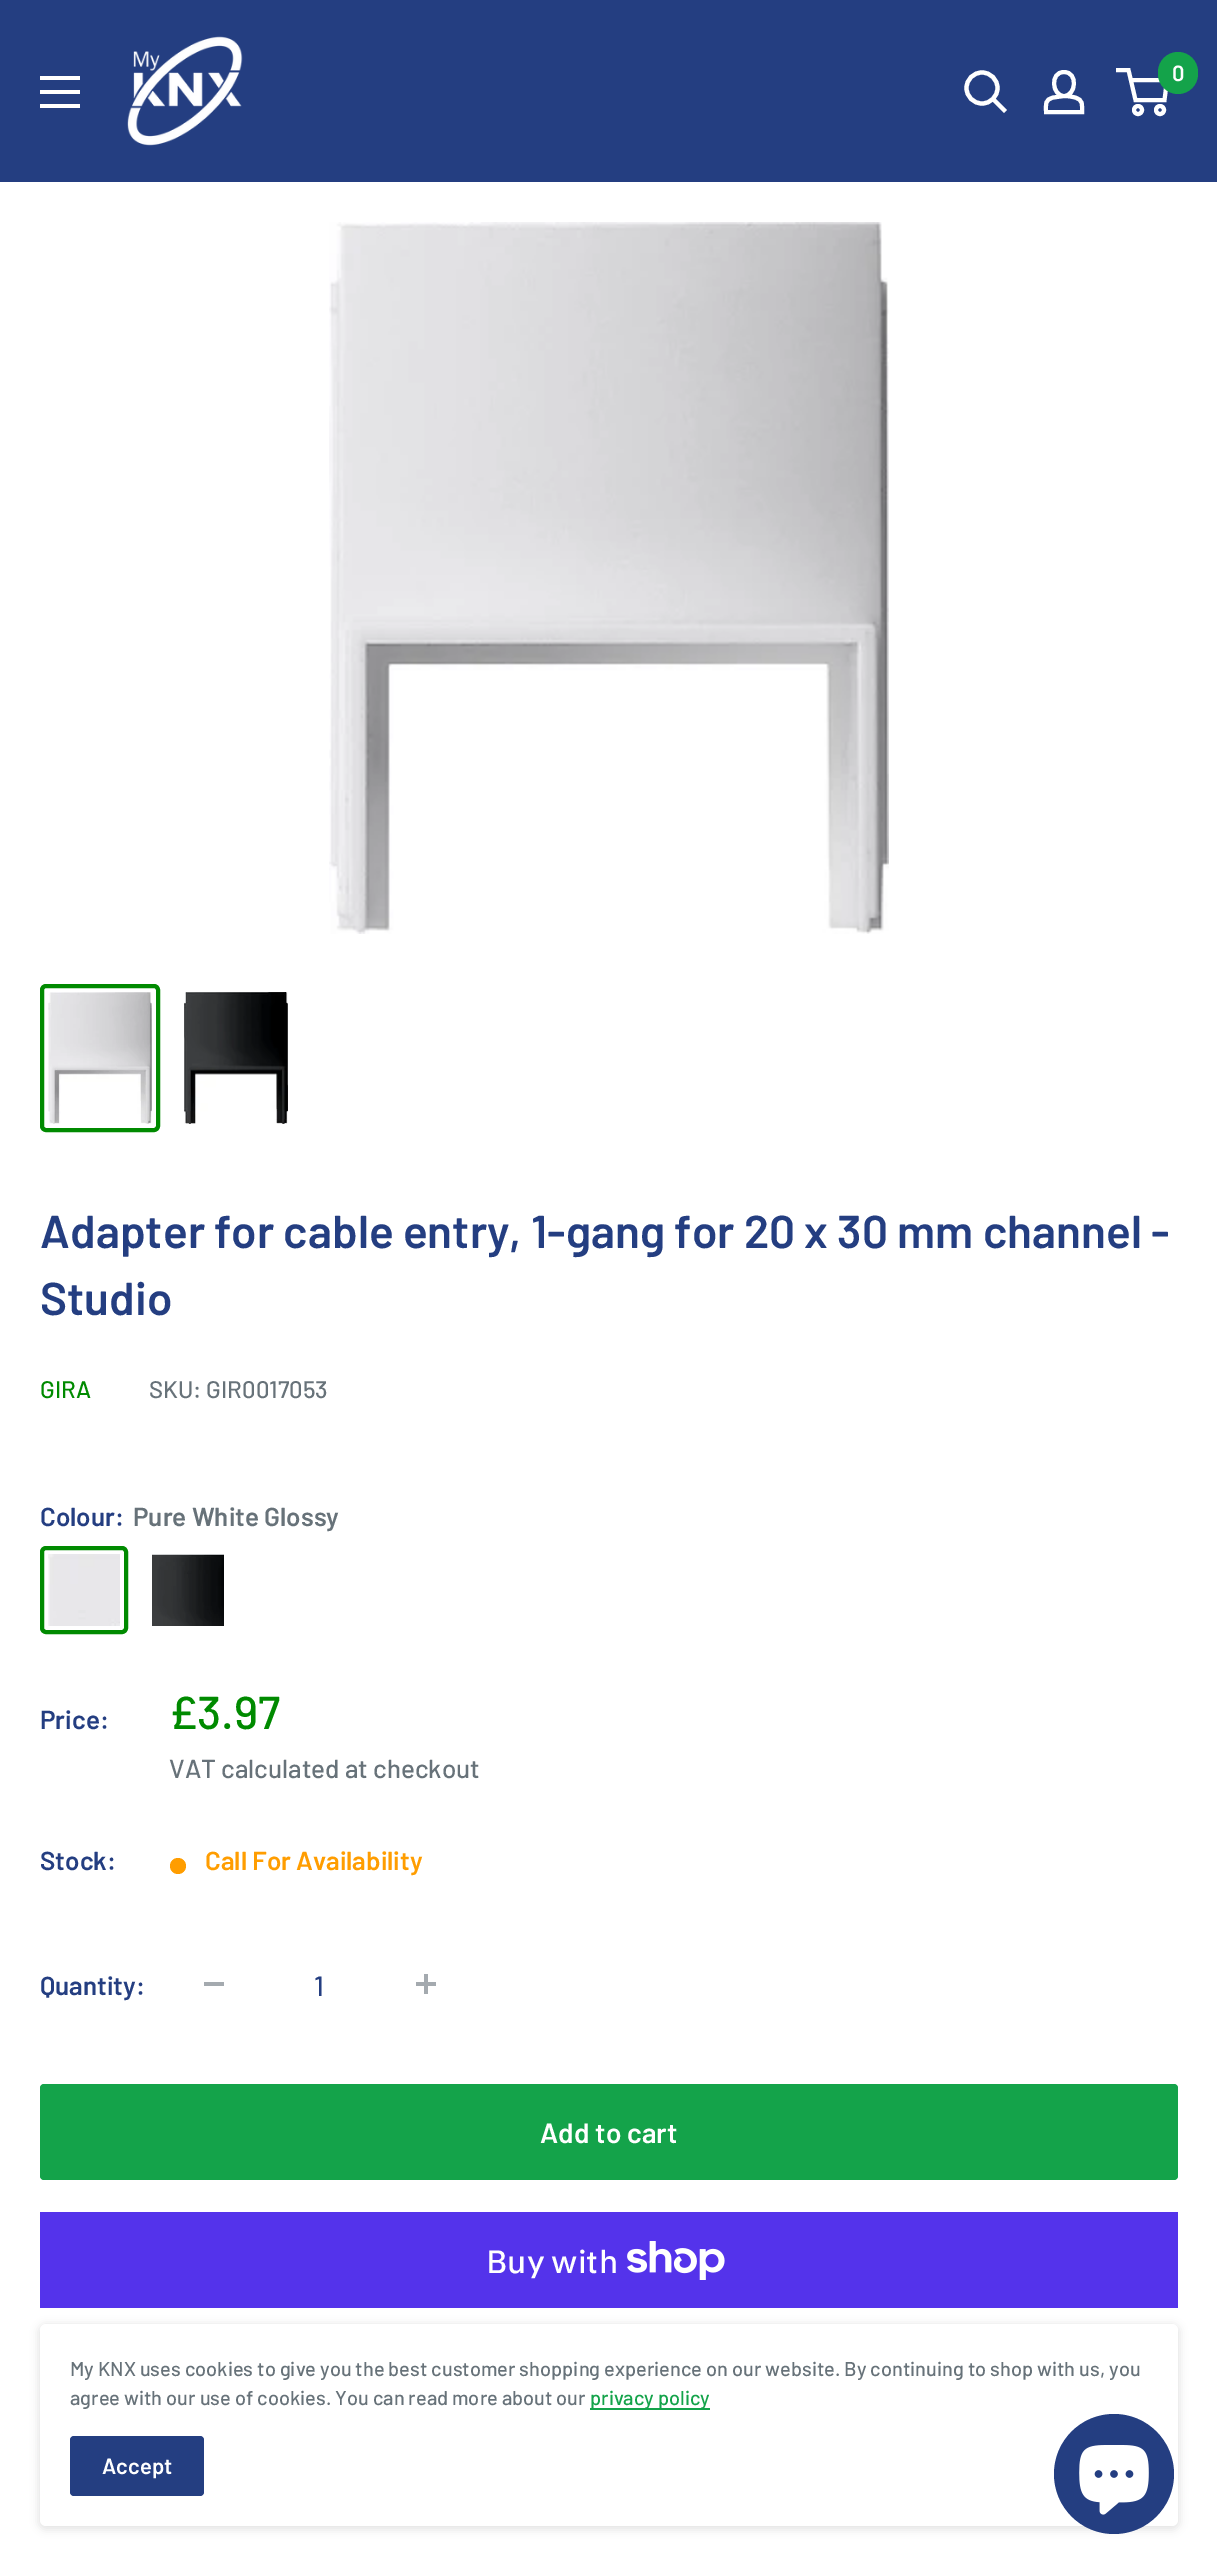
%!PS
<< /PageSize [1217 2575] /PageUsesTransparency true >> setpagedevice
/rgb { dup -16 bitshift 255 div exch dup -8 bitshift 255 and 255 div exch 255 and 255 div setrgbcolor } def
/font { [ exch dup neg 0 0 3 -1 roll 0 0 ] selectfont } def
/text { moveto show } def
/alpha { dup .setfillconstantalpha .setstrokeconstantalpha } def
/circle { newpath 0 360 arc closepath } def
/roundrect { 5 dict begin { /r /h /w /y /x } { exch def } forall
  x r add y moveto x w add y 2 copy h add r arct x w add y h add x 1 index r arct
  x y h add x y r arct x y 2 copy exch w add exch r arct closepath end } def
/shadow { 12 dict begin { /a /b /q /h /w /y /x } { exch def } forall gsave /was 0 def
  9 -2 -9 { dup b mul 4 div /e exch def 1 sub .425 mul 2.718 exch exp 1 add a .99 .min exch div /now exch def
    1 1 now sub 1 was sub div sub alpha /was now def
    w h .min e 2 mul add 0 gt { x e sub y e sub w e 2 mul add h e 2 mul add
      q e add b .6 mul add w h .min 2 div e add .min 0 .max roundrect fill } if } for grestore end } def
/picture { 5 dict begin { /h /w /y /x /name } { exch def } forall
  gsave x y translate w h scale
  w h 8 [w 0 0 h 0 0] name (r) file false 3 colorimage grestore end } def
0 .pushpdf14devicefilter
0 2575 translate 1 -1 scale
4 setmiterlimit
/s1 { /Barlow-SemiBold 22 font 16#FFFFFF rgb } def
/s2 { /Barlow-SemiBold 46 font 16#243E81 rgb } def
/s3 { /Barlow-Medium 24 font 16#008A00 rgb } def
/s4 { /Barlow-Medium 24 font 16#677279 rgb } def
/s5 { /Barlow-SemiBold 26 font 16#243E81 rgb } def
/s6 { /Barlow-SemiBold 26 font 16#677279 rgb } def
/s7 { /Barlow-Medium 46 font 16#008A00 rgb } def
/s8 { /Barlow-Medium 26 font 16#677279 rgb } def
/s9 { /Barlow-SemiBold 26 font 16#FF9D00 rgb } def
/s10 { /Barlow-Medium 28 font 16#243E81 rgb } def
/s11 { /Barlow-SemiBold 28 font 16#FFFFFF rgb } def
/s12 { /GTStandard-Medium 32 font 16#FFFFFF rgb } def
/s13 { /Barlow-Medium 20 font 16#677279 rgb } def
/s14 { /Barlow-Medium 20 font 16#14A34A rgb } def
16#FFFFFF rgb
0 0 1217 2575 rectfill
16#243E81 rgb
0 0 1217 182 rectfill
(pic1.raw) 127 36 116 110 picture
16#FFFFFF rgb
4.2 setlinewidth
2 setlinecap
1004 110 moveto 993.5 99.5 lineto stroke
0 setlinecap
982 88 15.5 circle stroke
4 setlinewidth
1064 96 moveto 1068 96 1071.5 96.5 1075 97.5 curveto 1083.5 100 1082 104.5 1082 112 curveto 1046 112 lineto 1046 104 1044.5 99.5 1053.5 97.5 curveto closepath 1064 96 moveto 1052 96 1049.5 72 1064 72 curveto 1078.5 72 1076 96 1064 96 curveto closepath stroke
1138 110 4 circle stroke
1160 110 4 circle stroke
1130.5 80 moveto 1167 80 lineto 1164.5 100 lineto 1135.5 100 lineto 1128.5 70 lineto 1116 70 lineto stroke
16#14A34A rgb
1158 52 40 42 20 roundrect fill
s1
(0) 1172 81 text
40 104 moveto 80 104 lineto 80 108 lineto 40 108 lineto closepath 40 76 moveto 80 76 lineto 80 80 lineto 40 80 lineto closepath 40 90 moveto 80 90 lineto 80 94 lineto 40 94 lineto closepath eofill
(pic2.raw) 329 222 560 712 picture
16#008A00 rgb
42 986 116 144 4 roundrect stroke
(pic3.raw) 48 992 104 132 picture
(pic4.raw) 184 992 104 132 picture
s2
(Adapter for cable entry, 1-gang for 20 x 30 mm channel -) 40 1248 text
(Studio) 40 1315 text
s3
(GIRA) 40 1398 text
s4
(SKU: GIR0017053) 149 1398 text
s5
(Colour:) 40 1526 text
s6
(Pure White Glossy) 133 1526 text
(pic5.raw) 48 1554 72 72 picture
16#008A00 rgb
42 1548 84 84 4 roundrect stroke
(pic6.raw) 152 1554 72 72 picture
s5
(Price:) 40 1729 text
s7
(£3.97) 169 1729 text
s8
(VAT calculated at checkout) 169 1778 text
s5
(Stock:) 40 1870 text
16#FF9D00 rgb
178 1866 8 circle fill
(Call For Availability) 205 1870 text
s5
(Quantity:) 40 1995 text
16#A4AAAF rgb
204 1982 20 4 rectfill
s10
(1) 314 1996 text
(pic7.raw) 416 1974 20 20 picture
16#14A34A rgb
40 2084 1138 96 4 roundrect fill
s11
(Add to cart) 540 2143 text
16#5433EB rgb
40 2212 1138 96 rectfill
s12
(Buy with) 486 2273 text
(pic8.raw) 627 2241 98 39 picture
16#000000 rgb
38 2324 1142 206 8 4 0.1 shadow
16#FFFFFF rgb
40 2324 1138 202 6 roundrect fill
s13
(My KNX uses cookies to give you the best customer shopping experience on our website. By continuing to shop with us, you) 70 2376 text
(agree with our use of cookies. You can read more about our) 70 2405 text
16#14A34A rgb
590 2408 120 2 rectfill
(privacy policy) 590 2405 text
16#243E81 rgb
70 2436 134 60 4 roundrect fill
s1
(Accept) 102 2474 text
16#243E81 rgb
1114 2474 60 circle fill
(pic9.raw) 1079 2445 70 70 picture
.poppdf14devicefilter showpage
